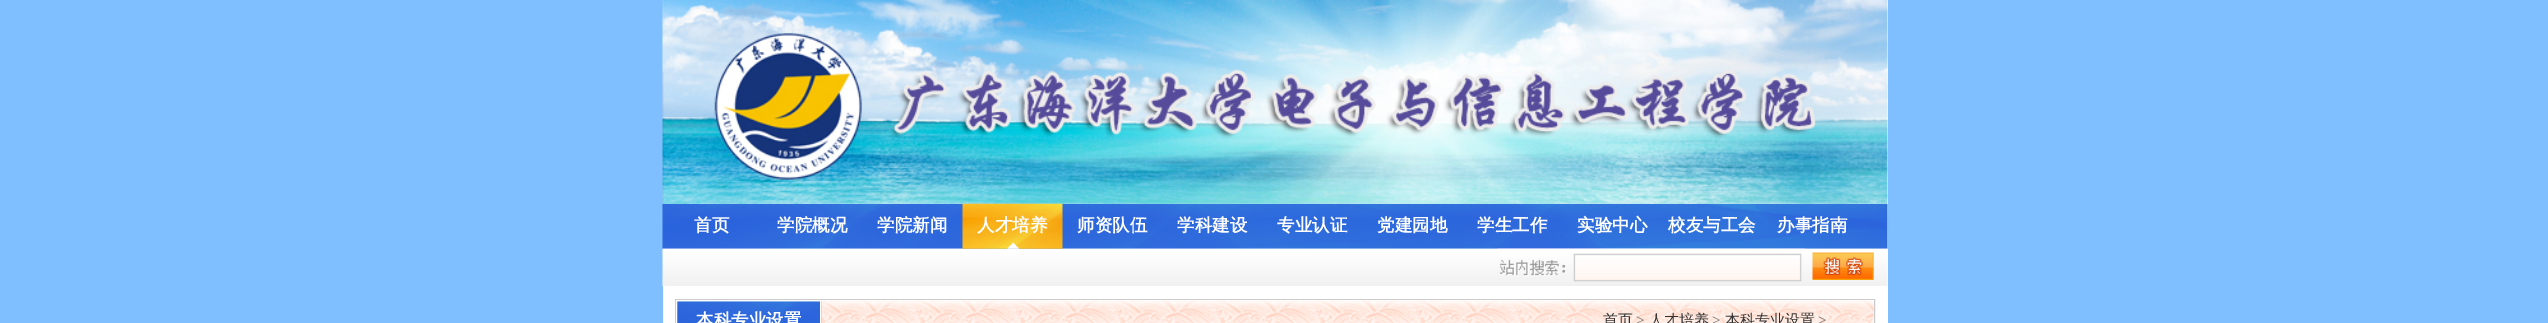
%!PS
<< /PageSize [2548 323] >> setpagedevice
/rgb { dup -16 bitshift 255 div exch dup -8 bitshift 255 and 255 div exch 255 and 255 div setrgbcolor } def
/font { [ exch dup neg 0 0 3 -1 roll 0 0 ] selectfont } def
/text { moveto show } def
/picture { 5 dict begin { /h /w /y /x /name } { exch def } forall
  gsave x y translate w h scale
  w h 8 [w 0 0 h 0 0] name (r) file false 3 colorimage grestore end } def
0 323 translate 1 -1 scale
4 setmiterlimit
/s1 { /WenQuanYiZenHei-Bold 17.5 font 16#FFFFFF rgb } def
/s2 { /WenQuanYiZenHei-Medium 15 font 16#333333 rgb } def
/s3 { /LiberationSerif-Regular 15 font 16#666666 rgb } def
16#7FBFFF rgb
0 0 2548 323 rectfill
16#FFFFFF rgb
663 0 1225 286 rectfill
(pic2.raw) 662 203 1226 46 picture
(pic1.raw) 662 0 1226 204 picture
s1
(首页) 694 231 text
(学院概况) 777 231 text
(学院新闻) 877 231 text
(pic4.raw) 662 248 1226 39 picture
(pic3.raw) 962 203 101 46 picture
(人才培养) 977 231 text
(师资队伍) 1077 231 text
(学科建设) 1177 231 text
(专业认证) 1277 231 text
(党建园地) 1377 231 text
(学生工作) 1477 231 text
(实验中心) 1577 231 text
(校友与工会) 1668 231 text
(办事指南) 1777 231 text
(pic5.raw) 1497 248 308 34 picture
(pic6.raw) 1812 252 62 28 picture
663 286 1225 37 rectfill
16#CCCCCC rgb
675.5 299.5 1199 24 rectstroke
(pic7.raw) 677 300 1197 23 picture
(pic8.raw) 677 301 145 22 picture
16#FFFFFF rgb
676.5 300.5 144 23 rectstroke
(本科专业设置) 696 326 text
s2
(首页) 1603 325 text
s3
(>) 1636 325 text
s2
(人才培养) 1649 325 text
s3
(>) 1712 325 text
s2
(本科专业设置) 1725 325 text
s3
(>) 1818 325 text
showpage
